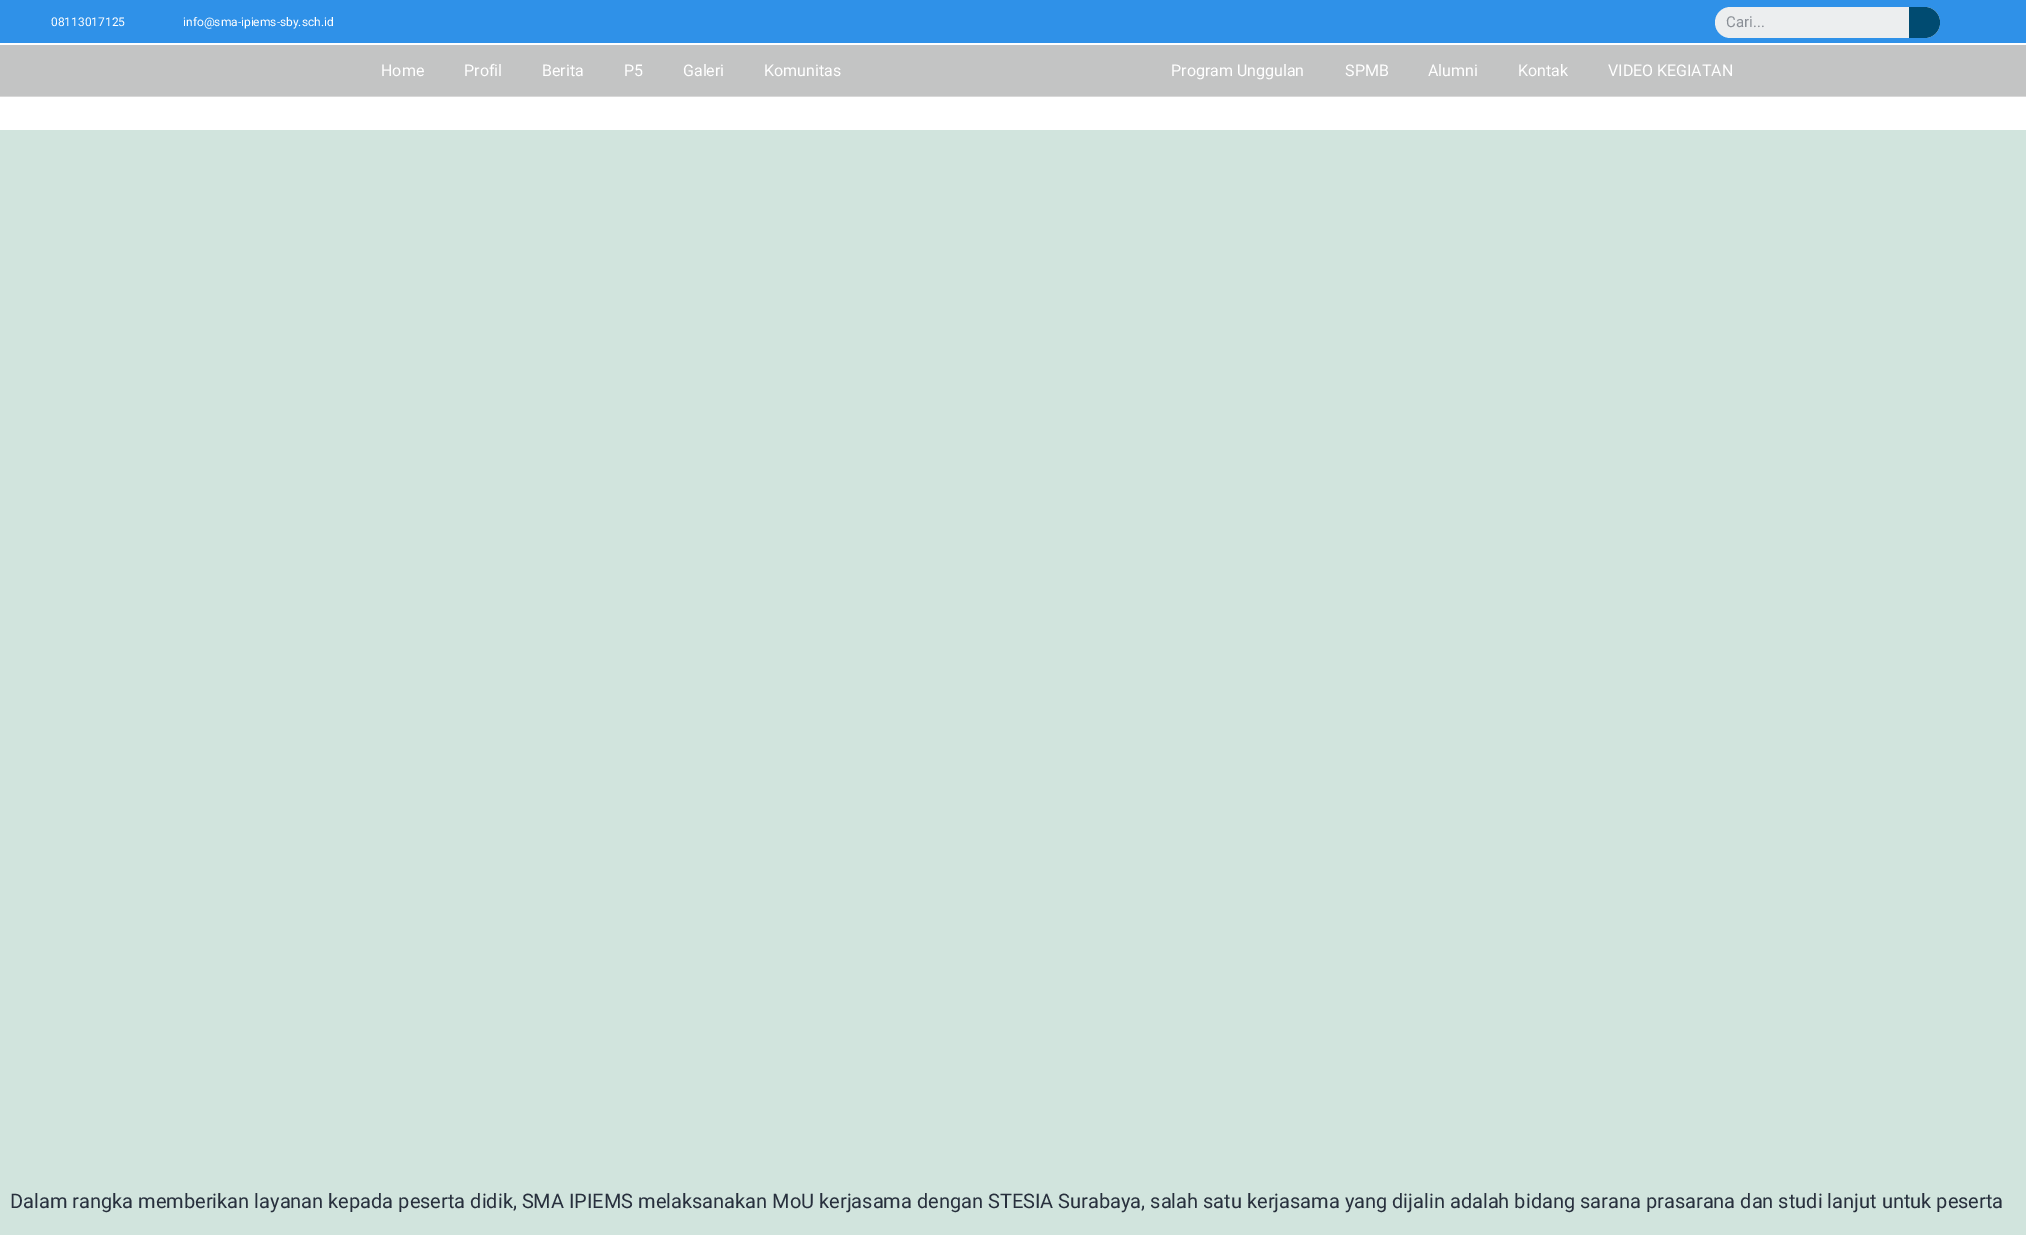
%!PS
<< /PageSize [2026 1235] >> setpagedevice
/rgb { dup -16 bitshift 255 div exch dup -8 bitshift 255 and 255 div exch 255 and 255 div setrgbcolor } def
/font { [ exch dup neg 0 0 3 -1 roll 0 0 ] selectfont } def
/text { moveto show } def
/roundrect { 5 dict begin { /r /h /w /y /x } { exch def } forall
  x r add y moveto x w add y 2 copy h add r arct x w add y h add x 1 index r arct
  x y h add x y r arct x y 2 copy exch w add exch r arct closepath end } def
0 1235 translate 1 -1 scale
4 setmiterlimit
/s1 { /Roboto-Regular 12 font 16#FFFFFF rgb } def
/s2 { /Roboto-Regular 15 font 16#8A8F96 rgb } def
/s3 { /Roboto-Regular 16 font 16#FFFFFF rgb } def
/s4 { /Roboto-Regular 20 font 16#28303D rgb } def
16#D1E4DD rgb
0 0 2026 1235 rectfill
16#2F91E8 rgb
0 0 2026 43 rectfill
s1
(08113017125) 51 26 text
(info@sma-ipiems-sby.sch.id) 183 26 text
16#ECEEEF rgb
1715 7 225 31 15.5 roundrect fill
s2
(Cari...) 1726 27 text
16#004B71 rgb
1909 7 moveto 1924.5 7 lineto 1933 7 1940 14 1940 22.5 curveto 1940 31 1933 38 1924.5 38 curveto 1909 38 lineto closepath fill
16#FFFFFF rgb
0 43 2026 87 rectfill
16#D8D8D8 rgb
0 96 2026 1 rectfill
16#C3C4C4 rgb
0 45 2026 51 rectfill
s3
(Home) 381 76 text
(Profil) 464 76 text
(Berita) 542 76 text
(P5) 624 76 text
(Galeri) 683 76 text
(Komunitas) 764 76 text
(Program Unggulan) 1171 76 text
(SPMB) 1345 76 text
(Alumni) 1428 76 text
(Kontak) 1518 76 text
(VIDEO KEGIATAN) 1608 76 text
s4
(Dalam rangka memberikan layanan kepada peserta didik, SMA IPIEMS melaksanakan MoU kerjasama dengan STESIA Surabaya, salah satu kerjasama yang dijalin adalah bidang sarana prasarana dan studi lanjut untuk peserta) 10 1208 text
showpage
